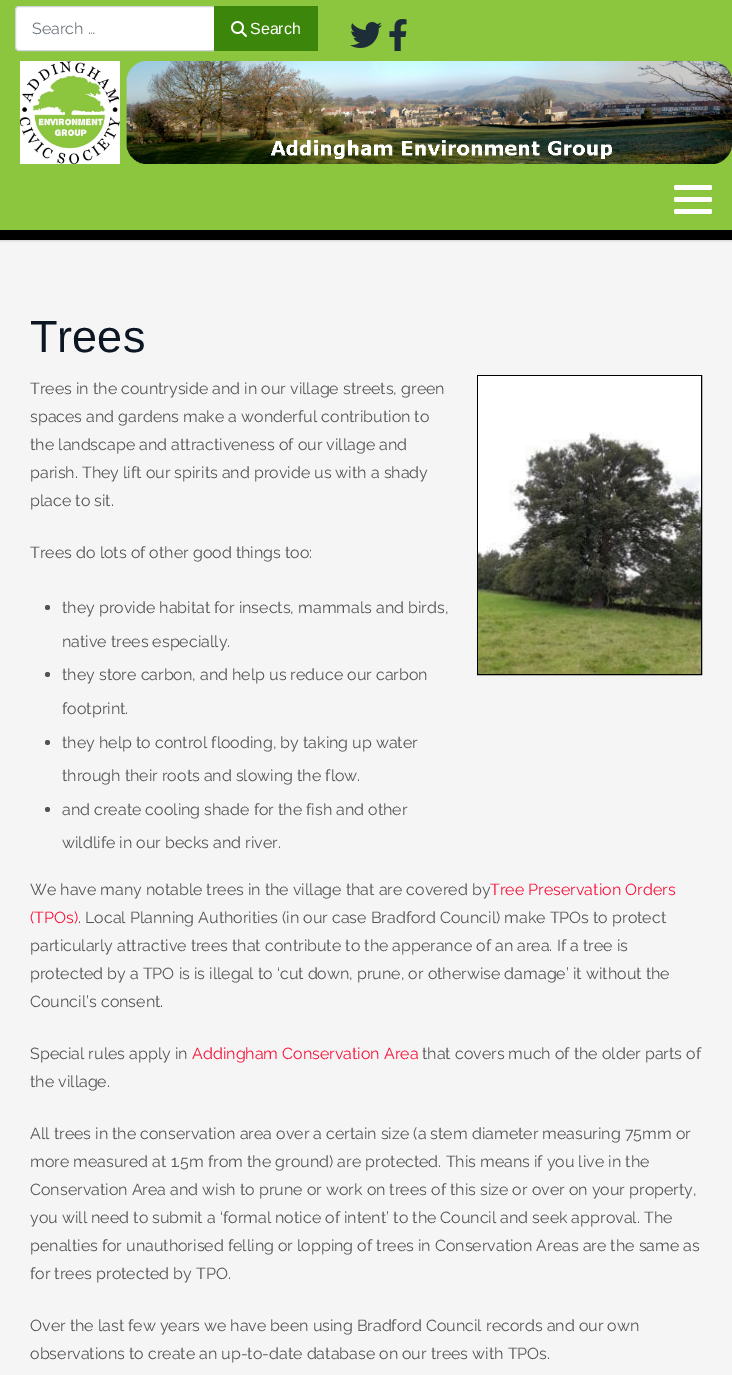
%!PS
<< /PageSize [732 1375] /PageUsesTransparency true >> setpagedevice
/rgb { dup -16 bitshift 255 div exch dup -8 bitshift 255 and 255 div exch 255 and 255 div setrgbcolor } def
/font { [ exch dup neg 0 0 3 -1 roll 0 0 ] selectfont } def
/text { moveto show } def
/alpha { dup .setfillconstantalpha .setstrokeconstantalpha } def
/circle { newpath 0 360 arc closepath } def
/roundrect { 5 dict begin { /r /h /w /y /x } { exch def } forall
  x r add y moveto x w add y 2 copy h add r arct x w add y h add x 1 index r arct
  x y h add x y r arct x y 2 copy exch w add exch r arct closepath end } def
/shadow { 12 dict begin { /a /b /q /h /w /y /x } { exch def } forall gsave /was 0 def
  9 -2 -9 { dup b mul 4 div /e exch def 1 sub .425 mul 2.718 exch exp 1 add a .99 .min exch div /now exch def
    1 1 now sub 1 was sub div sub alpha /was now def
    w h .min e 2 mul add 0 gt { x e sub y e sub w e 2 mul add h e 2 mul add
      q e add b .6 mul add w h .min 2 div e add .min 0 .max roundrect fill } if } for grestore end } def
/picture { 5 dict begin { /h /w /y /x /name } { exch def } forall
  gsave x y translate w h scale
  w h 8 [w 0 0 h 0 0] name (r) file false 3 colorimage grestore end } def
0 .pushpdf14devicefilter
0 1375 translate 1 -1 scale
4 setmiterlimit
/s1 { /Raleway-Regular 16 font 16#6D757E rgb } def
/s2 { /LiberationSans-Regular 16 font 16#FFFFFF rgb } def
/s3 { /LiberationSans-Regular 45 font 16#0D1724 rgb } def
/s4 { /Raleway-Regular 16 font 16#545454 rgb } def
/s5 { /Raleway-Regular 16 font 16#F71138 rgb } def
16#F5F5F5 rgb
0 0 732 1375 rectfill
16#000000 rgb
0 10 732 230 0 1.5 0.25 shadow
16#8CC63E rgb
0 0 732 230 rectfill
16#FFFFFF rgb
19 6.5 moveto 214.5 6.5 lineto 214.5 50.5 lineto 19 50.5 lineto 17 50.5 15.5 49 15.5 47 curveto 15.5 10 lineto 15.5 8 17 6.5 19 6.5 curveto closepath gsave fill grestore
16#CED4DA rgb
stroke
s1
(Search …) 32 34 text
16#3C870B rgb
214 6 104 45 rectfill
(pic1.raw) 231 21 16 16 picture
s2
(Search) 250 34 text
(pic2.raw) 350 22 32 26 picture
(pic3.raw) 389 19 18 32 picture
(pic4.raw) 20 61 712 103 picture
674 197 38 5 2 roundrect fill
674 185 38 5 2 roundrect fill
674 209 38 5 2 roundrect fill
16#000000 rgb
0 230 732 10 rectfill
s3
(Trees) 30 352 text
s4
(Trees in the countryside and in our village streets, green) 30 394 text
16#000000 rgb
477.5 375.5 224 299 rectstroke
(pic5.raw) 478 376 223 298 picture
s4
(spaces and gardens make a wonderful contribution to) 30 422 text
(the landscape and attractiveness of our village and) 30 450 text
(parish. They lift our spirits and provide us with a shady) 30 478 text
(place to sit.) 30 506 text
(Trees do lots of other good things too:) 30 558 text
47.5 607.5 2.5 circle fill
(they provide habitat for insects, mammals and birds,) 62 613 text
(native trees especially.) 62 647 text
47.5 674.5 2.5 circle fill
(they store carbon, and help us reduce our carbon) 62 680 text
(footprint.) 62 714 text
47.5 742.5 2.5 circle fill
(they help to control flooding, by taking up water) 62 748 text
(through their roots and slowing the flow.) 62 781 text
47.5 809.5 2.5 circle fill
(and create cooling shade for the fish and other) 62 815 text
(wildlife in our becks and river.) 62 848 text
(We have many notable trees in the village that are covered by) 30 895 text
s5
(Tree Preservation Orders) 490 895 text
(\(TPOs\)) 30 923 text
s4
(. Local Planning Authorities \(in our case Bradford Council\) make TPOs to protect) 78 923 text
(particularly attractive trees that contribute to the apperance of an area. If a tree is) 30 951 text
(protected by a TPO is is illegal to ‘cut down, prune, or otherwise damage’ it without the) 30 979 text
(Council’s consent.) 30 1007 text
(Special rules apply in) 30 1059 text
s5
(Addingham Conservation Area) 192 1059 text
s4
(that covers much of the older parts of) 422 1059 text
(the village.) 30 1087 text
(All trees in the conservation area over a certain size \(a stem diameter measuring 75mm or) 30 1139 text
(more measured at 1.5m from the ground\) are protected. This means if you live in the) 30 1167 text
(Conservation Area and wish to prune or work on trees of this size or over on your property,) 30 1195 text
(you will need to submit a ‘formal notice of intent’ to the Council and seek approval. The) 30 1223 text
(penalties for unauthorised felling or lopping of trees in Conservation Areas are the same as) 30 1251 text
(for trees protected by TPO.) 30 1279 text
(Over the last few years we have been using Bradford Council records and our own) 30 1331 text
(observations to create an up-to-date database on our trees with TPOs.) 30 1359 text
.poppdf14devicefilter showpage
